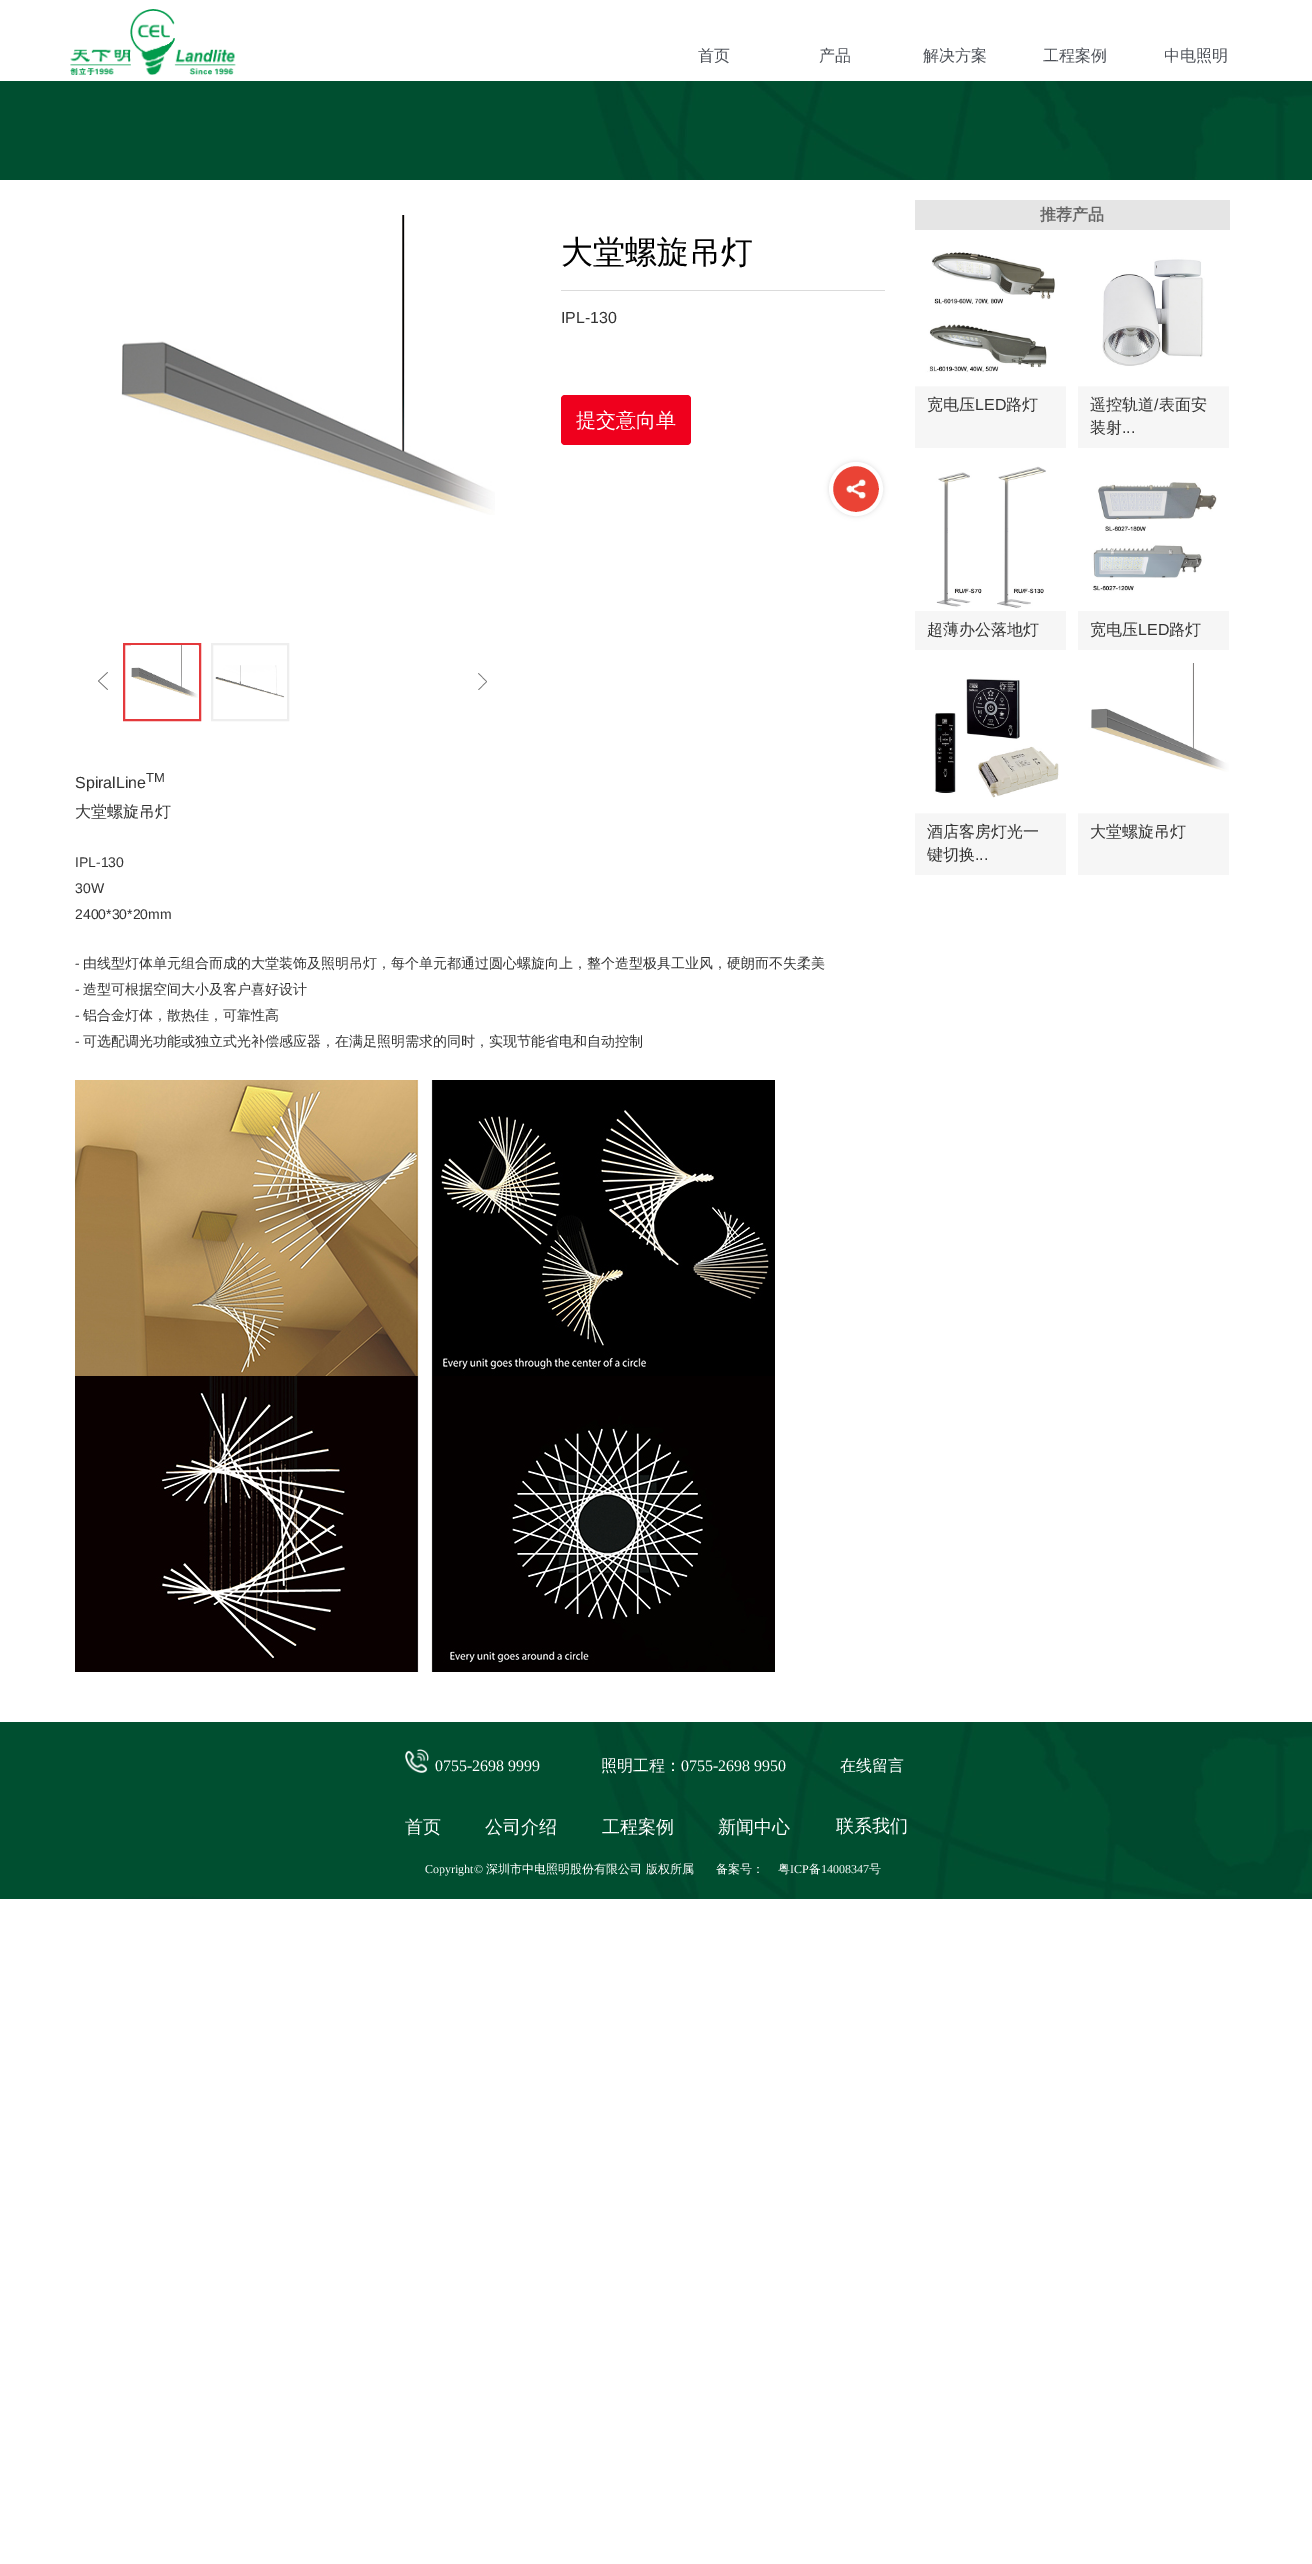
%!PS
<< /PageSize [1312 2564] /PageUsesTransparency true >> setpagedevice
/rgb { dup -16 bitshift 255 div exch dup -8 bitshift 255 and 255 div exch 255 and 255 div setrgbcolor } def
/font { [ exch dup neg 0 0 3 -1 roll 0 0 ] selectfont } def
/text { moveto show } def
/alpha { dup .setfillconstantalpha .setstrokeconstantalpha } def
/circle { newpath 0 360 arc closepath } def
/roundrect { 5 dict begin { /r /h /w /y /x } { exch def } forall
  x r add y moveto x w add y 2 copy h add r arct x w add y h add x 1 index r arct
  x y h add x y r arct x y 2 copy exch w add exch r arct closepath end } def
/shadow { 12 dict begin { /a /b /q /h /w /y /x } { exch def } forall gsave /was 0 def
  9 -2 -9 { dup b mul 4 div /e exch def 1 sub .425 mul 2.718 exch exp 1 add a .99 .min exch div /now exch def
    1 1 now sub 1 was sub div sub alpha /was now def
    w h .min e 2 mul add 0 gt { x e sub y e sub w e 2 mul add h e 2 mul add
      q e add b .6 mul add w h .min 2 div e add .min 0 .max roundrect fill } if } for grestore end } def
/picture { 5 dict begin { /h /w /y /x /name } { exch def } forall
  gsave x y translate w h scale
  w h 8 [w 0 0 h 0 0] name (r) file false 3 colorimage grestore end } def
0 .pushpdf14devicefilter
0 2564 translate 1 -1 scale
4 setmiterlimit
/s1 { /WenQuanYiZenHei-Medium 16 font 16#4D5158 rgb } def
/s2 { /WenQuanYiZenHei-Medium 32 font 16#000000 rgb } def
/s3 { /LiberationSans-Regular 16 font 16#333333 rgb } def
/s4 { /WenQuanYiZenHei-Medium 20 font 16#FFFFFF rgb } def
/s5 { /WenQuanYiZenHei-Bold 16 font 16#666666 rgb } def
/s6 { /WenQuanYiZenHei-Medium 16 font 16#333333 rgb } def
/s7 { /LiberationSans-Regular 13 font 16#333333 rgb } def
/s8 { /LiberationSans-Regular 14 font 16#333333 rgb } def
/s9 { /WenQuanYiZenHei-Medium 14 font 16#333333 rgb } def
/s10 { /LiberationSerif-Regular 16 font 16#FFFFFF rgb } def
/s11 { /WenQuanYiZenHei-Medium 16 font 16#FFFFFF rgb } def
/s12 { /WenQuanYiZenHei-Medium 18 font 16#FFFFFF rgb } def
/s13 { /LiberationSerif-Regular 12 font 16#FFFFFF rgb } def
/s14 { /WenQuanYiZenHei-Medium 12 font 16#FFFFFF rgb } def
16#FFFFFF rgb
0 0 1312 2564 rectfill
(pic1.raw) 70 9 166 66 picture
s1
(首页) 698 61 text
(产品) 819 61 text
(解决方案) 923 61 text
(工程案例) 1043 61 text
(中电照明) 1164 61 text
(pic2.raw) 0 81 1312 99 picture
(pic3.raw) 121 215 374 300 picture
(pic4.raw) 98 672 10 18 picture
16#E4393C rgb
2 setlinewidth
124 644 76 76 rectstroke
(pic5.raw) 131 645 67 53 picture
16#EEEEEE rgb
212 644 76 76 rectstroke
(pic6.raw) 215 665 70 33 picture
(pic7.raw) 478 673 9 17 picture
16#DBDBDB rgb
561 290 324 1 rectfill
s2
(大堂螺旋吊灯) 561 263 text
s3
(IPL-130) 561 323 text
16#EF001D rgb
561 395 130 50 4 roundrect fill
s4
(提交意向单) 576 427 text
16#E5E5E5 rgb
915 200 315 30 rectfill
s5
(推荐产品) 1040 220 text
16#F6F6F6 rgb
915 387 151 61 rectfill
16#EEEEEE rgb
915 386 151 1 rectfill
(pic8.raw) 915 236 151 151 picture
s6
(宽电压) 927 410 text
s3
(LED) 975 410 text
s6
(路灯) 1006 410 text
16#F6F6F6 rgb
1078 387 151 61 rectfill
16#EEEEEE rgb
1078 386 151 1 rectfill
(pic9.raw) 1078 236 151 151 picture
s6
(遥控轨道) 1090 410 text
s3
(/) 1154 410 text
s6
(表面安) 1159 410 text
(装射) 1090 433 text
s3
(...) 1122 433 text
16#F6F6F6 rgb
915 611 151 39 rectfill
(pic10.raw) 915 461 151 150 picture
s6
(超薄办公落地灯) 927 635 text
16#F6F6F6 rgb
1078 611 151 39 rectfill
(pic11.raw) 1078 461 151 150 picture
s6
(宽电压) 1090 635 text
s3
(LED) 1138 635 text
s6
(路灯) 1169 635 text
16#F6F6F6 rgb
915 814 151 61 rectfill
16#EEEEEE rgb
915 813 151 1 rectfill
(pic12.raw) 915 663 151 151 picture
s6
(酒店客房灯光一) 927 837 text
(键切换) 927 860 text
s3
(...) 975 860 text
16#F6F6F6 rgb
1078 814 151 61 rectfill
16#EEEEEE rgb
1078 813 151 1 rectfill
(pic13.raw) 1078 663 151 151 picture
s6
(大堂螺旋吊灯) 1090 837 text
16#DDDDDD rgb
829 462 54 54 27 2.5 1 shadow
16#EA4335 rgb
856 489 25 circle gsave fill grestore
16#FFFFFF rgb
4 setlinewidth
stroke
(pic14.raw) 846 479 20 20 picture
s3
(SpiralLine) 75 788 text
s7
(TM) 146 782 text
s6
(大堂螺旋吊灯) 75 817 text
s8
(IPL-130) 75 867 text
(30W) 75 893 text
(2400*30*20mm) 75 919 text
(-) 75 968 text
s9
(由线型灯体单元组合而成的大堂装饰及照明吊灯，每个单元都通过圆心螺旋向上，整个造型极具工业风，硬朗而不失柔美) 83 968 text
s8
(-) 75 994 text
s9
(造型可根据空间大小及客户喜好设计) 83 994 text
s8
(-) 75 1020 text
s9
(铝合金灯体，散热佳，可靠性高) 83 1020 text
s8
(-) 75 1046 text
s9
(可选配调光功能或独立式光补偿感应器，在满足照明需求的同时，实现节能省电和自动控制) 83 1046 text
(pic15.raw) 75 1080 700 296 picture
(pic16.raw) 75 1376 700 296 picture
(pic17.raw) 0 1722 1312 177 picture
(pic18.raw) 405 1749 24 24 picture
s10
(0755-2698 9999) 435 1771 text
s11
(照明工程：) 601 1771 text
s10
(0755-2698 9950) 681 1771 text
s11
(在线留言) 840 1771 text
s12
(首页) 405 1833 text
(公司介绍) 485 1833 text
(工程案例) 602 1833 text
(新闻中心) 718 1833 text
(联系我们) 836 1832 text
s13
(Copyright©) 425 1873 text
s14
(深圳市中电照明股份有限公司 版权所属) 486 1873 text
(备案号：) 716 1873 text
(粤) 778 1873 text
s13
(ICP) 790 1873 text
s14
(备) 809 1873 text
s13
(14008347) 821 1873 text
s14
(号) 869 1873 text
.poppdf14devicefilter showpage
